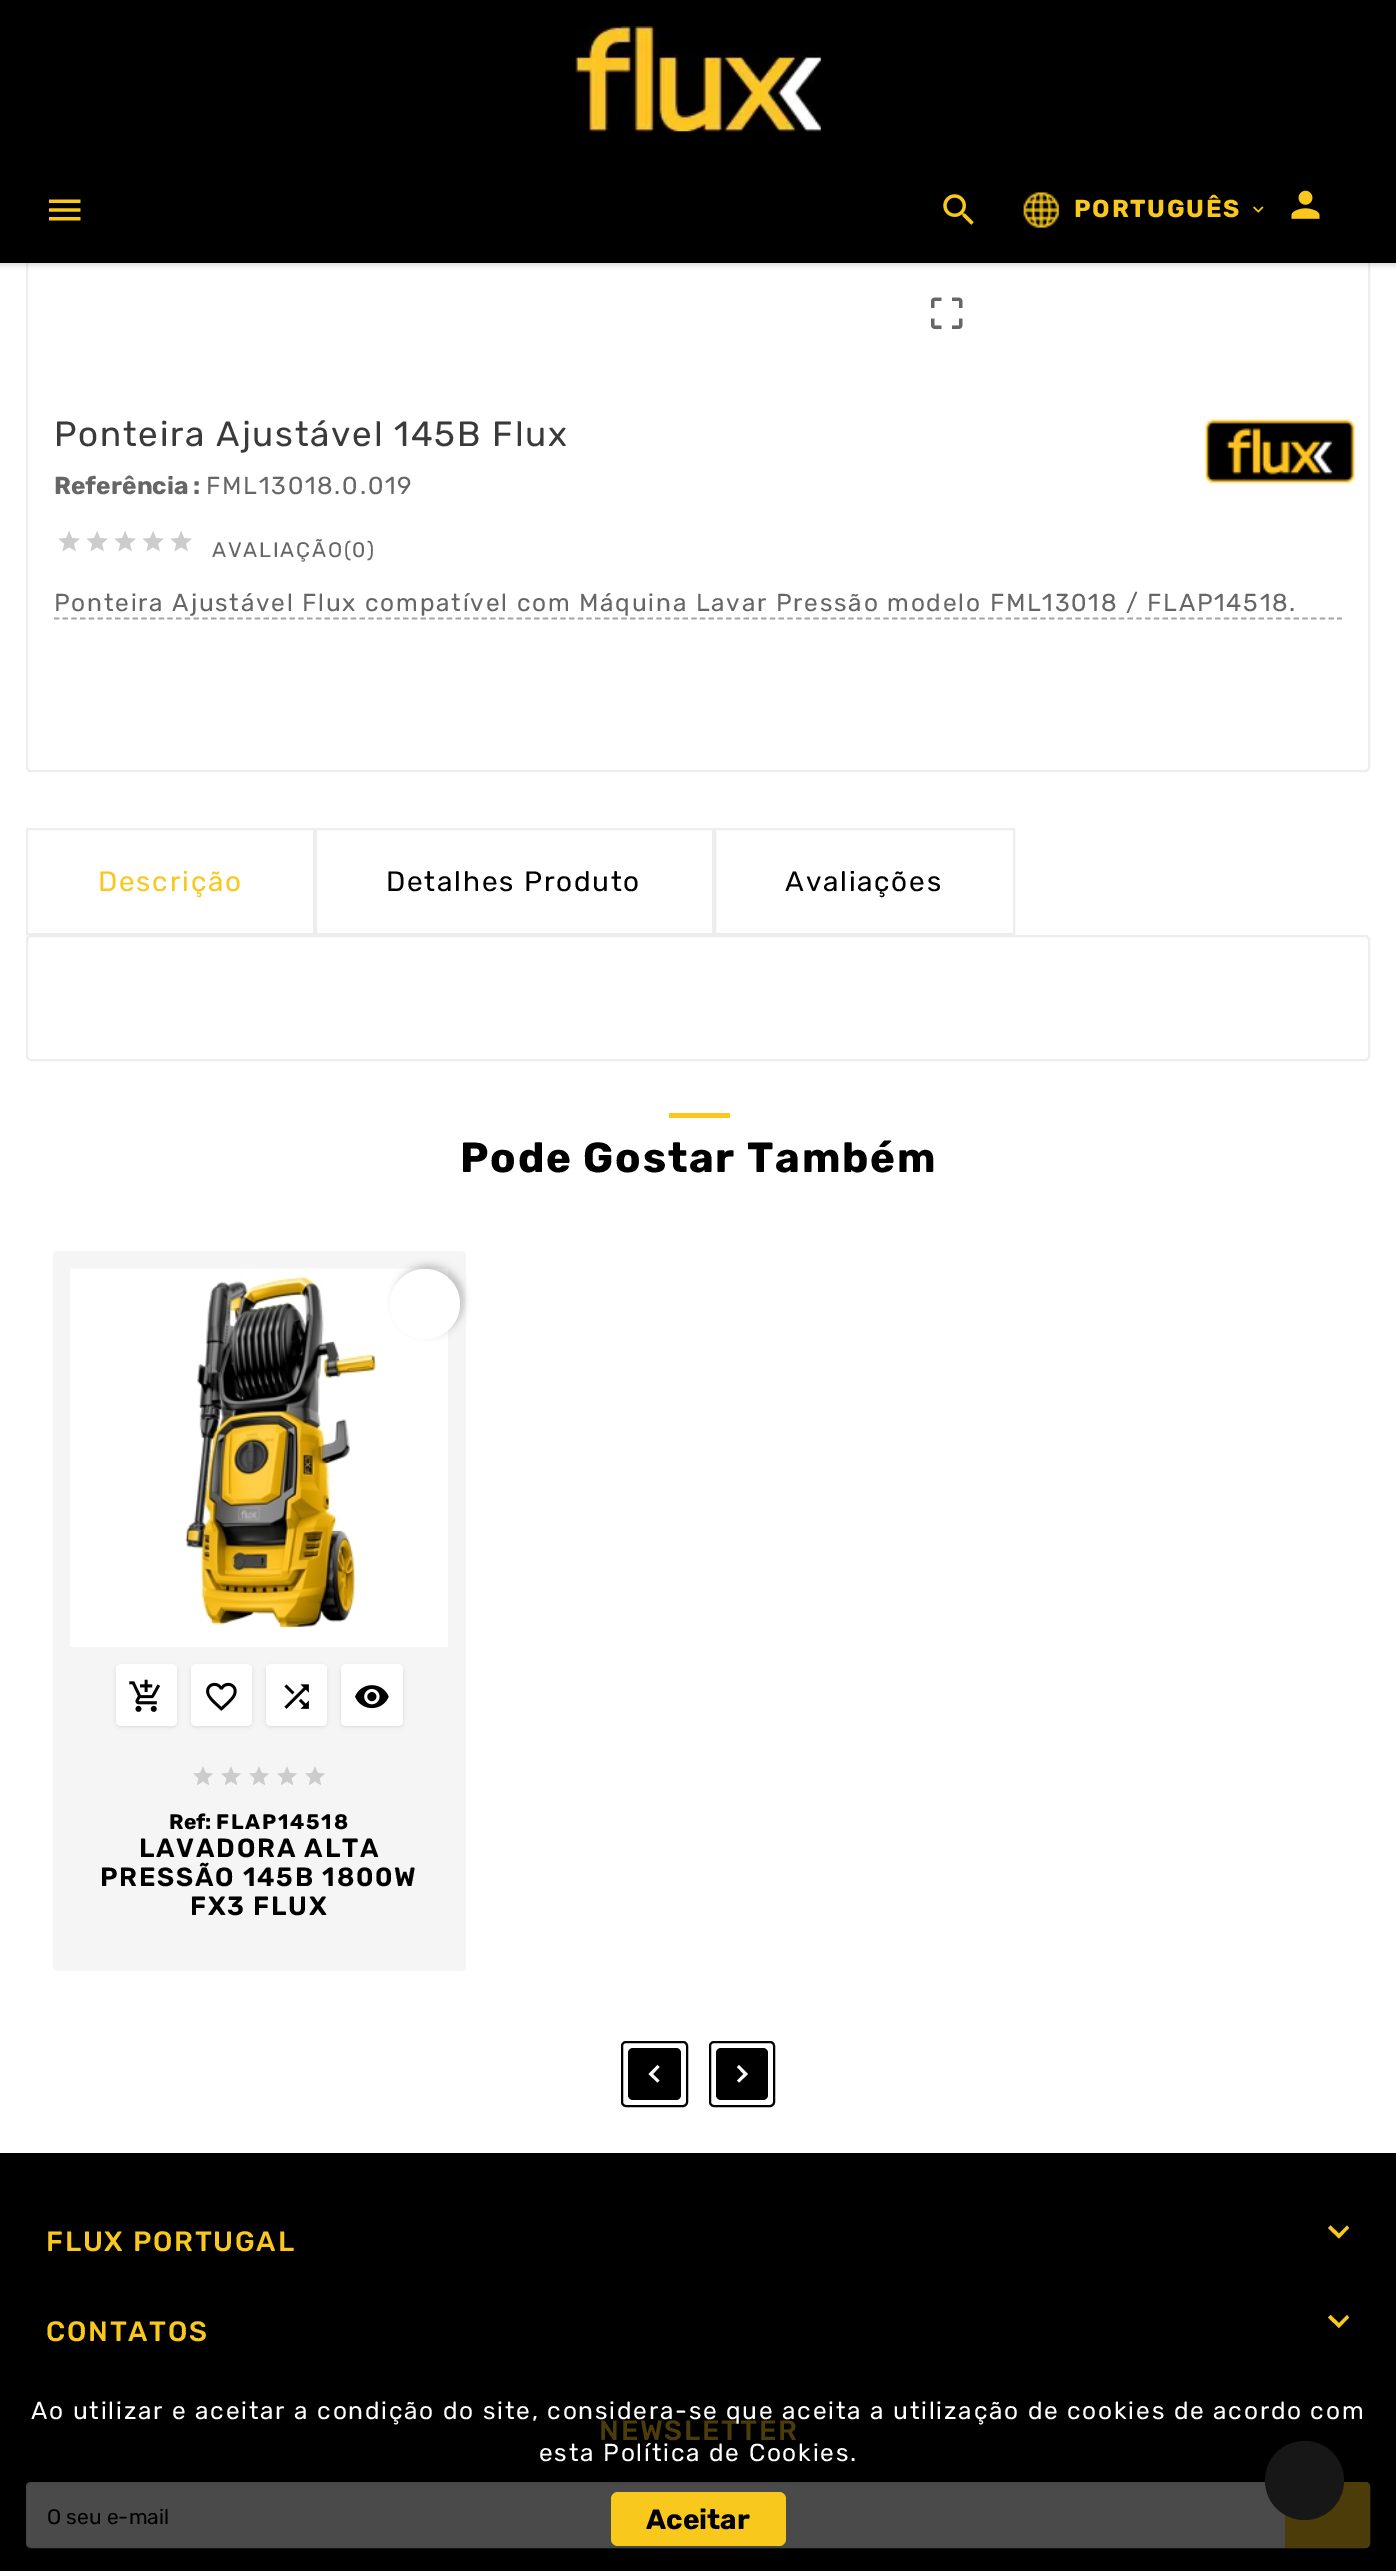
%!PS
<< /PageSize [1396 2571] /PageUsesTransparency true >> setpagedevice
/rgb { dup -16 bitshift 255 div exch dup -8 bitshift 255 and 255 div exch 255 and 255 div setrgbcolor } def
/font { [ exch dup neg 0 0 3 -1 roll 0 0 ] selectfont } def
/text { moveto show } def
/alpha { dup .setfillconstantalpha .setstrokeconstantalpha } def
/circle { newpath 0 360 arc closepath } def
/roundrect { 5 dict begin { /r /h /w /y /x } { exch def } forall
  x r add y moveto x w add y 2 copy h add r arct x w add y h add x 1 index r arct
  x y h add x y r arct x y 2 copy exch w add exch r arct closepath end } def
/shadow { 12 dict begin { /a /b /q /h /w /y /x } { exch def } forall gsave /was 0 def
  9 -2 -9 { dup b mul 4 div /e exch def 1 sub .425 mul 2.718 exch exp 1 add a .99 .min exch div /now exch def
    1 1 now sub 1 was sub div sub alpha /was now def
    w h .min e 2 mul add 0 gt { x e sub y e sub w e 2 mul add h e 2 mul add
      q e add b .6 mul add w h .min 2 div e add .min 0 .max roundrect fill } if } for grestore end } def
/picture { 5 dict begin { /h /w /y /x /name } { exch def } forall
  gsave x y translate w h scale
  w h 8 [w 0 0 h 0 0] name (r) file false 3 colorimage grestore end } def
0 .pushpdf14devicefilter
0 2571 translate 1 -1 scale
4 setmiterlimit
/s1 { /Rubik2-Light 24.5 font 16#666666 rgb } def
/s2 { /Rubik2-Light 21 font 16#000000 rgb } def
/s3 { /Rubik-Light 21 font 16#000000 rgb } def
/s4 { /Rubik2-Light 28 font 16#000000 rgb } def
16#FFFFFF rgb
0 0 1396 2571 rectfill
16#EDEDED rgb
2 setlinewidth
27 -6 1342 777 4 roundrect stroke
16#808080 rgb
-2 0 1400 266 0 2.5 0.27 shadow
16#000000 rgb
0 0 1396 263 rectfill
(pic1.raw) 575 26 246 106 picture
(pic2.raw) 49 199 32 22 picture
(pic3.raw) 943 194 31 31 picture
(pic4.raw) 1023 192 36 36 picture
/Rubik2-Light 24.5 font
16#F9C81D rgb
1074 217 moveto 1.75 0 (PORTUGUÊS) ashow
(pic5.raw) 1253 206 11 7 picture
(pic6.raw) 1291 190 29 29 picture
(pic7.raw) 931 297 32 32 picture
/Rubik-Light 35 font
16#3A3A3A rgb
54 446 moveto 1.75 0 (Ponteira Ajustável 145B Flux) ashow
(pic8.raw) 1205 419 150 65 picture
s1
(Referência :) 54 494 text
/Rubik-Light 24.5 font
206 494 moveto 1.75 0 (FML13018.0.019) ashow
(pic9.raw) 58 531 22 21 picture
(pic9.raw) 86 531 22 21 picture
(pic9.raw) 114 531 22 21 picture
(pic9.raw) 142 531 22 21 picture
(pic9.raw) 170 531 22 21 picture
/Rubik-Light 21 font
212 557 moveto 1.75 0 (AVALIAÇÃO\(0\)) ashow
/Rubik-Light 24.5 font
54 611 moveto 1.75 0 (Ponteira Ajustável Flux compatível com Máquina Lavar Pressão modelo FML13018 / FLAP14518.) ashow
16#A7A7A7 rgb
1.8 setlinewidth
[5.25 3.48] 0 setdash
54 618.5 moveto 1342 618.5 lineto stroke
16#EDEDED rgb
2 setlinewidth
[] 0 setdash
27 829 287 105 rectstroke
/Rubik-Light 28 font
16#F9C81D rgb
98 891 moveto 1.75 0 (Descrição) ashow
16#EDEDED rgb
316 829 397 105 rectstroke
16#000000 rgb
386 891 moveto 1.75 0 (Detalhes Produto) ashow
16#EDEDED rgb
715 829 299 105 rectstroke
16#000000 rgb
785 891 moveto 1.75 0 (Avaliações) ashow
16#EDEDED rgb
27 936 1342 124 4 roundrect stroke
16#F9C81D rgb
669 1113 61 5 rectfill
/Rubik2-Light 42 font
16#000000 rgb
460 1172 moveto 1.75 0 (Pode Gostar Também) ashow
16#F5F5F5 rgb
53 1251 413 720 5 roundrect fill
(pic10.raw) 70 1268 378 362 picture
16#000000 rgb
394 1265 70 70 35 3.5 0.2 shadow
16#FFFFFF rgb
425 1304 35 circle fill
70 1630 378 17 rectfill
16#000000 rgb
116 1666 61 61 5 2 0.1 shadow
16#FFFFFF rgb
116 1664 61 62 5 roundrect fill
(pic11.raw) 129 1679 31 33 picture
16#000000 rgb
191 1666 61 61 5 2 0.1 shadow
16#FFFFFF rgb
191 1664 61 62 5 roundrect fill
(pic12.raw) 206 1682 31 29 picture
16#000000 rgb
266 1666 61 61 5 2 0.1 shadow
16#FFFFFF rgb
266 1664 61 62 5 roundrect fill
(pic13.raw) 284 1684 25 25 picture
16#000000 rgb
341 1666 62 61 5 2 0.1 shadow
16#FFFFFF rgb
341 1664 62 62 5 roundrect fill
(pic14.raw) 355 1685 34 24 picture
(pic15.raw) 193 1766 20 19 picture
(pic15.raw) 221 1766 20 19 picture
(pic15.raw) 249 1766 20 19 picture
(pic15.raw) 277 1766 20 19 picture
(pic15.raw) 305 1766 20 19 picture
s2
(Ref:) 169 1829 text
216 1829 moveto 1.75 0 (FLAP14518) ashow
/Rubik-SemiBold 26.25 font
139 1857 moveto 1.75 0 (LAVADORA ALTA) ashow
100 1886 moveto 1.75 0 (PRESSÃO 145B 1800W) ashow
190 1915 moveto 1.75 0 (FX3 FLUX) ashow
628 2048 53 52 5 roundrect fill
622 2042 65 64 4 roundrect stroke
16#FFFFFF rgb
659.5 2067 moveto 653 2074 lineto 659.5 2080.5 lineto 657.5 2082.5 lineto 648.5 2074 lineto 657.5 2065 lineto closepath fill
16#000000 rgb
716 2048 52 52 5 roundrect fill
710 2042 64 64 4 roundrect stroke
16#FFFFFF rgb
739 2065 moveto 748 2074 lineto 739 2082.5 lineto 737 2080.5 lineto 743.5 2074 lineto 737 2067 lineto closepath fill
16#000000 rgb
0 2153 1396 418 rectfill
/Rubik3-Light 28 font
16#F9C81D rgb
46 2251 moveto 1.75 0 (FLUX PORTUGAL) ashow
1330.5 2225.5 moveto 1339 2233.5 lineto 1347 2225.5 lineto 1349 2228 lineto 1339 2238.5 lineto 1328 2228 lineto closepath fill
46 2341 moveto 1.75 0 (CONTATOS) ashow
1330.5 2315 moveto 1339 2323 lineto 1347 2315 lineto 1349 2317.5 lineto 1339 2328 lineto 1328 2317.5 lineto closepath fill
16#4B3C09 rgb
599 2440 moveto 1.75 0 (NEWSLETTER) ashow
16#4A4A4A rgb
27 2483 1342 64 4 roundrect gsave fill grestore
16#474747 rgb
stroke
s3
(O seu e-mail) 47 2524 text
16#4B3C09 rgb
1285 2482 moveto 1365 2482 lineto 1368 2482 1370 2484 1370 2487 curveto 1370 2543 lineto 1370 2546 1368 2548 1365 2548 curveto 1285 2548 lineto closepath fill
16#171717 rgb
1304.5 2480.5 39.5 circle fill
/Rubik-Light 24.5 font
16#FFFFFF rgb
31 2419 moveto 1.75 0 (Ao utilizar e aceitar a condição do site, considera-se que aceita a utilização de cookies de acordo com) ashow
539 2461 moveto 1.75 0 (esta Política de Cookies.) ashow
16#F9C81D rgb
611 2492 175 54 7 roundrect fill
s4
(Aceitar) 646 2529 text
.poppdf14devicefilter showpage
